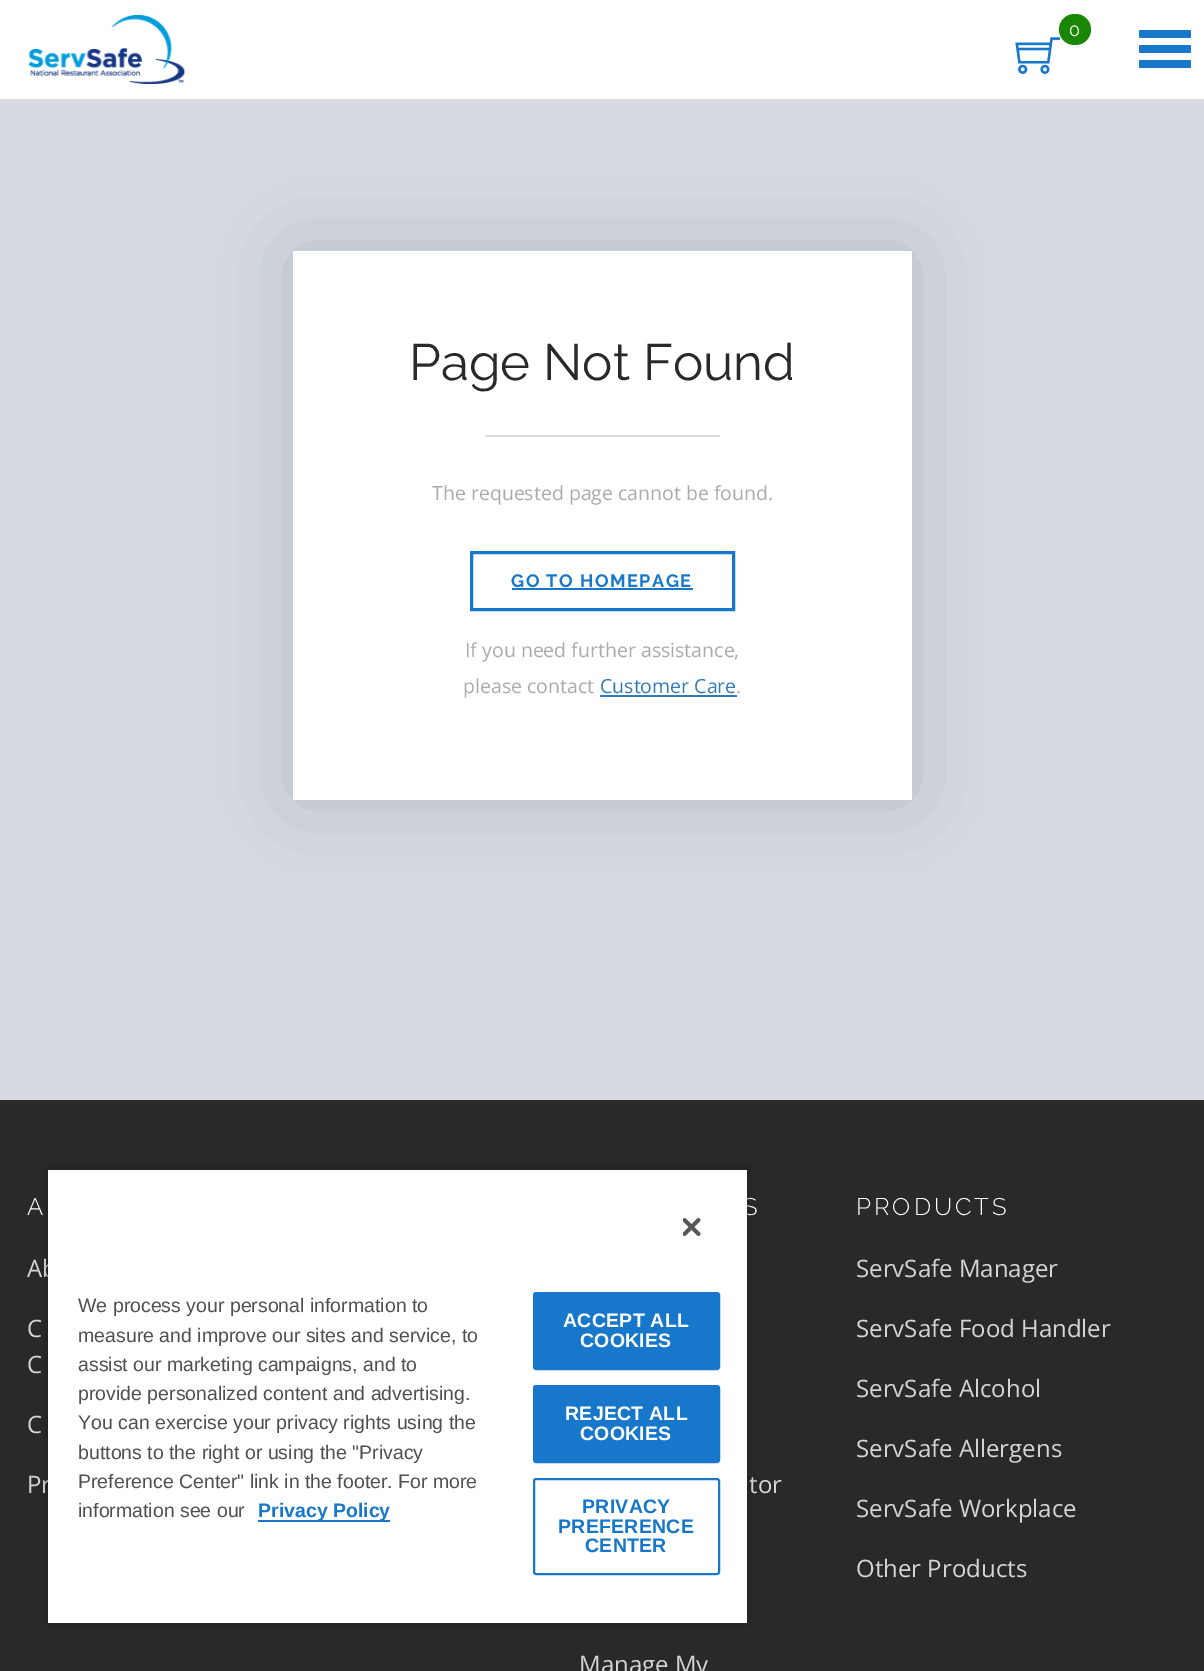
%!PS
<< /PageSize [1204 1671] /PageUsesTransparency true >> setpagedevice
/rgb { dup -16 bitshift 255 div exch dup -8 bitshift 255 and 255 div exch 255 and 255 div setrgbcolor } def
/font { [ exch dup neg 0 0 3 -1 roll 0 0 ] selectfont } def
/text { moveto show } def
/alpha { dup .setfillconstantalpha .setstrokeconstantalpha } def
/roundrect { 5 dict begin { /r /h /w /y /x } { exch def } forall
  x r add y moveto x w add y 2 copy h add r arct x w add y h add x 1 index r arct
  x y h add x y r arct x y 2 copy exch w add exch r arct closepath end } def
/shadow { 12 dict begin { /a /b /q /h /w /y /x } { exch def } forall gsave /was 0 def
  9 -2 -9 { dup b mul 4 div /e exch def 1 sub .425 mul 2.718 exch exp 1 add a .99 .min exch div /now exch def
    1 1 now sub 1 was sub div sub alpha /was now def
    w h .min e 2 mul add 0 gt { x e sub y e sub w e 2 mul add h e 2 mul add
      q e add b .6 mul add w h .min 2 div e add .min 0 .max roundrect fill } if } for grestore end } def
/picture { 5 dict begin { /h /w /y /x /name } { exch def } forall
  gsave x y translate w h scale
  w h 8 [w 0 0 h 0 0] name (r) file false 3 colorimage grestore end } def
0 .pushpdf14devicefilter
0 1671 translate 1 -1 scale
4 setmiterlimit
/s1 { /Raleway-Regular 18 font 16#FFFFFF rgb } def
/s2 { /Raleway-Regular 51 font 16#292929 rgb } def
/s3 { /OpenSans-Regular 19.5 font 16#AAAAAA rgb } def
/s4 { /OpenSans-Regular 19.5 font 16#337AB7 rgb } def
/s5 { /OpenSans-Regular 24 font 16#D4D4D4 rgb } def
/s6 { /LiberationSans-Regular 19.5 font 16#505050 rgb } def
/s7 { /LiberationSans-Bold 19.5 font 16#1677CB rgb } def
16#FFFFFF rgb
0 0 1204 1671 rectfill
16#DDDDDD rgb
0 99 1204 2 rectfill
(pic1.raw) 28 15 157 69 picture
(pic2.raw) 1015 37 45 37 picture
16#198703 rgb
1059 14 32 31 15.5 roundrect fill
s1
(0) 1069 36 text
16#1677CB rgb
1139 45 52 8 1.5 roundrect fill
1139 30 52 8 1.5 roundrect fill
1139 60 52 8 1.5 roundrect fill
16#D7DAE2 rgb
0 101 1204 999 rectfill
16#808E9A rgb
293 251 619 549 0 45 0.4 shadow
16#FFFFFF rgb
293 251 619 549 rectfill
s2
(Page Not Found) 409 380 text
16#DDDDDD rgb
485 435 235 2 rectfill
s3
(The requested page cannot be found.) 432 500 text
16#1677CB rgb
3 setlinewidth
471.5 552.5 262 57 rectstroke
/Raleway-Bold 18 font
511 587 moveto 1.5 0 (GO TO HOMEPAGE) ashow
512 588 181 2 rectfill
s3
(If you need further assistance,) 465 657 text
(please contact) 463 693 text
s4
(Customer Care) 600 693 text
600 695 137 2 rectfill
s3
(.) 736 693 text
16#292929 rgb
0 1100 1204 571 rectfill
/Raleway-Light 24 font
16#FFFFFF rgb
27 1215 moveto 3 0 (A) ashow
s5
(Ab) 27 1277 text
(C) 27 1337 text
(C) 27 1373 text
(C) 27 1433 text
(Pr) 27 1493 text
/Raleway-Light 24 font
16#FFFFFF rgb
743 1215 moveto 3 0 (S) ashow
s5
(tor) 749 1493 text
(Manage My) 579 1673 text
/Raleway-Light 24 font
16#FFFFFF rgb
856 1215 moveto 3 0 (PRODUCTS) ashow
s5
(ServSafe Manager) 856 1277 text
(ServSafe Food Handler) 856 1337 text
(ServSafe Alcohol) 856 1397 text
(ServSafe Allergens) 856 1457 text
(ServSafe Workplace) 856 1517 text
(Other Products) 856 1577 text
gsave
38 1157 moveto 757 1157 lineto 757 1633 lineto 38 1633 lineto closepath 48 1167 moveto 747 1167 lineto 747 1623 lineto 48 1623 lineto closepath eoclip newpath
16#000000 rgb
48 1167 699 456 0 3 0.35 shadow
grestore
gsave
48 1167 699 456 rectclip
16#000000 rgb
48 1170 699 453 0 3 0.2 shadow
grestore
16#FFFFFF rgb
48 1170 699 453 rectfill
(pic3.raw) 683 1218 18 18 picture
s6
(We process your personal information to) 78 1312 text
(measure and improve our sites and service, to) 78 1342 text
(assist our marketing campaigns, and to) 78 1371 text
(provide personalized content and advertising.) 78 1400 text
(You can exercise your privacy rights using the) 78 1429 text
(buttons to the right or using the "Privacy) 78 1459 text
(Preference Center" link in the footer. For more) 78 1488 text
(information see our) 78 1517 text
16#1677CB rgb
258 1520 132 2 rectfill
s7
(Privacy Policy) 258 1517 text
534 1293 185 76 2 roundrect gsave fill grestore
2 setlinewidth
stroke
16#FFFFFF rgb
563 1327 moveto 0.25 0 (ACCEPT ALL) ashow
580 1347 moveto 0.25 0 (COOKIES) ashow
16#1677CB rgb
534 1386 185 76 2 roundrect gsave fill grestore
stroke
16#FFFFFF rgb
565 1420 moveto 0.25 0 (REJECT ALL) ashow
580 1440 moveto 0.25 0 (COOKIES) ashow
16#1677CB rgb
534 1479 185 95 2 roundrect stroke
582 1513 moveto 0.25 0 (PRIVACY) ashow
558 1533 moveto 0.25 0 (PREFERENCE) ashow
585 1552 moveto 0.25 0 (CENTER) ashow
.poppdf14devicefilter showpage
